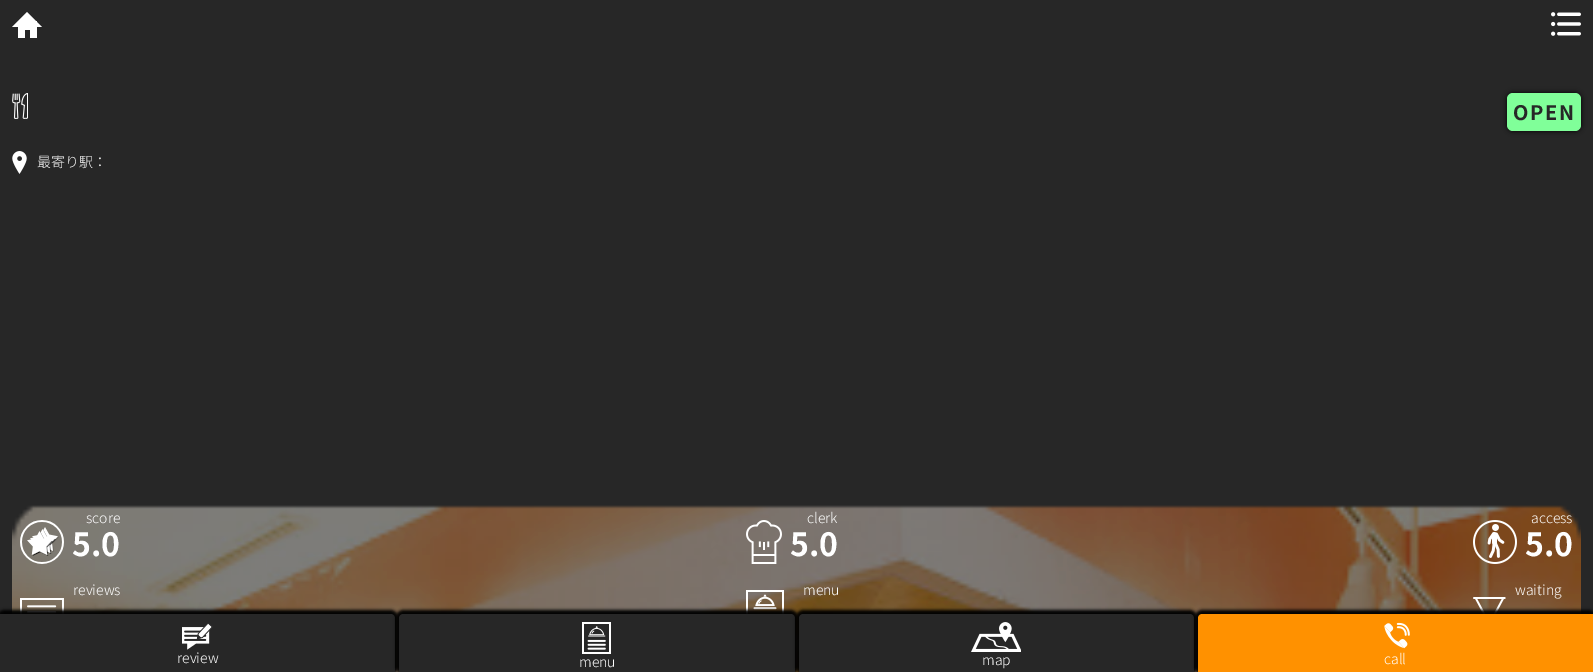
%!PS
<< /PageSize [1593 672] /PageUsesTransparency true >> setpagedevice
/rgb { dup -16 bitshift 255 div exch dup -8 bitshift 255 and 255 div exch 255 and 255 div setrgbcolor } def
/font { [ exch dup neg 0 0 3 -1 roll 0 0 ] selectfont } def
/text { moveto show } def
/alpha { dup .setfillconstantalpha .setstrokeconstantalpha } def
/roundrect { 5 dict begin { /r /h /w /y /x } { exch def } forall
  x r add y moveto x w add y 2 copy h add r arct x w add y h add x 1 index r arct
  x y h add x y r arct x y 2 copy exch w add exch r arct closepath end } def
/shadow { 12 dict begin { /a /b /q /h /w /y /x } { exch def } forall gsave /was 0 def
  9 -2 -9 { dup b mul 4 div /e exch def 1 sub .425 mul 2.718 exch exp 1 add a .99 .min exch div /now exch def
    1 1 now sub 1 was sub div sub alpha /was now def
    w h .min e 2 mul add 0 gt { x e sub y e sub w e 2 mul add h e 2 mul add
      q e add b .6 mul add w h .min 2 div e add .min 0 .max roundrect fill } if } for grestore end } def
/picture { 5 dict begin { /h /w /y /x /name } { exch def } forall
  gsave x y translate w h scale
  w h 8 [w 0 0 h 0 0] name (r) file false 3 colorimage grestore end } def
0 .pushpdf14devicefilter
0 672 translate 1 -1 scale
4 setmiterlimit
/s1 { /NotoSansJP-Light 14 font 16#FFFFFF rgb } def
/s2 { /NotoSansJP-Bold 32 font 16#FFFFFF rgb } def
16#272727 rgb
0 0 1593 672 rectfill
16#FFFFFF rgb
18 21 19 17 rectfill
27 12 moveto 42 27 lineto 12 27 lineto closepath fill
16#272727 rgb
25 30 5 10 rectfill
(pic1.raw) 1551 12 30 24 picture
(pic2.raw) 12 93 16 26 picture
16#000000 rgb
1507 93 74 38 6 3 1 shadow
16#80FF99 rgb
1507 93 74 38 6 roundrect fill
/NotoSansJP-Bold 20 font
16#272727 rgb
1513 120 moveto 1.5 0 (OPEN) ashow
(pic3.raw) 12 151 15 23 picture
s1
(最寄り駅：) 37 167 text
(pic4.raw) 12 505 1569 167 picture
(pic5.raw) 20 520 44 44 picture
(score) 86 523 text
s2
(5.0) 72 556 text
s1
(reviews) 73 595 text
(pic6.raw) 20 598 44 16 picture
(pic7.raw) 746 520 36 44 picture
(clerk) 807 523 text
s2
(5.0) 790 556 text
(pic8.raw) 746 590 38 24 picture
s1
(menu) 803 595 text
(pic9.raw) 1473 520 44 44 picture
(access) 1531 523 text
s2
(5.0) 1525 556 text
s1
(waiting) 1515 595 text
(pic10.raw) 1473 597 33 17 picture
16#000000 rgb
-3 610 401 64 7 1.5 1 shadow
16#272727 rgb
0 614 moveto 391 614 lineto 393 614 395 616 395 618 curveto 395 672 lineto 0 672 lineto closepath fill
(pic11.raw) 182 623 31 27 picture
s1
(review) 177 663 text
16#000000 rgb
396 610 402 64 7 1.5 1 shadow
16#272727 rgb
403 614 moveto 791 614 lineto 793 614 795 616 795 618 curveto 795 672 lineto 399 672 lineto 399 618 lineto 399 616 401 614 403 614 curveto closepath fill
(pic12.raw) 582 622 29 32 picture
s1
(menu) 579 667 text
16#000000 rgb
796 610 401 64 7 1.5 1 shadow
16#272727 rgb
803 614 moveto 1190 614 lineto 1192 614 1194 616 1194 618 curveto 1194 672 lineto 799 672 lineto 799 618 lineto 799 616 801 614 803 614 curveto closepath fill
(pic13.raw) 971 622 50 30 picture
s1
(map) 982 665 text
16#000000 rgb
1195 610 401 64 7 1.5 1 shadow
16#FF9100 rgb
1202 614 moveto 1593 614 lineto 1593 672 lineto 1198 672 lineto 1198 618 lineto 1198 616 1200 614 1202 614 curveto closepath fill
(pic14.raw) 1384 622 26 27 picture
s1
(call) 1384 664 text
.poppdf14devicefilter showpage
